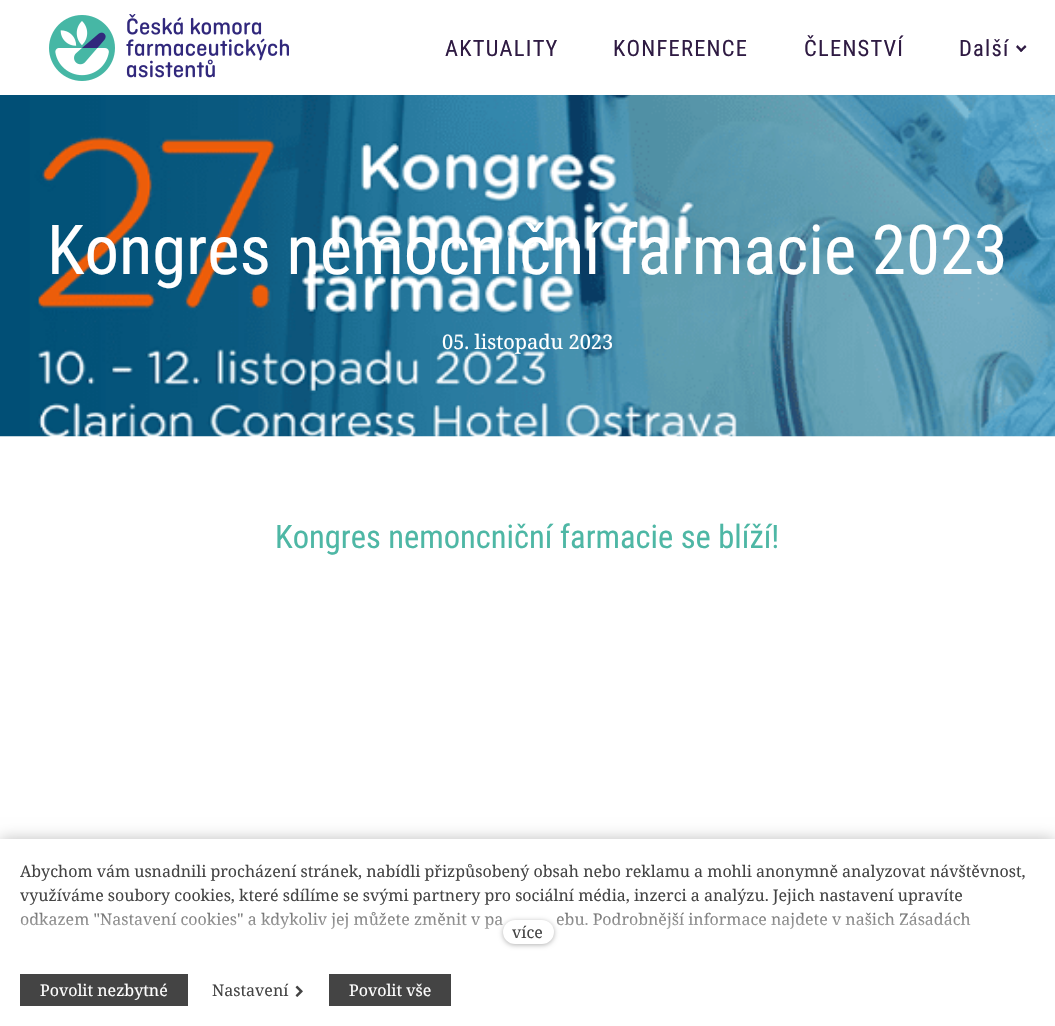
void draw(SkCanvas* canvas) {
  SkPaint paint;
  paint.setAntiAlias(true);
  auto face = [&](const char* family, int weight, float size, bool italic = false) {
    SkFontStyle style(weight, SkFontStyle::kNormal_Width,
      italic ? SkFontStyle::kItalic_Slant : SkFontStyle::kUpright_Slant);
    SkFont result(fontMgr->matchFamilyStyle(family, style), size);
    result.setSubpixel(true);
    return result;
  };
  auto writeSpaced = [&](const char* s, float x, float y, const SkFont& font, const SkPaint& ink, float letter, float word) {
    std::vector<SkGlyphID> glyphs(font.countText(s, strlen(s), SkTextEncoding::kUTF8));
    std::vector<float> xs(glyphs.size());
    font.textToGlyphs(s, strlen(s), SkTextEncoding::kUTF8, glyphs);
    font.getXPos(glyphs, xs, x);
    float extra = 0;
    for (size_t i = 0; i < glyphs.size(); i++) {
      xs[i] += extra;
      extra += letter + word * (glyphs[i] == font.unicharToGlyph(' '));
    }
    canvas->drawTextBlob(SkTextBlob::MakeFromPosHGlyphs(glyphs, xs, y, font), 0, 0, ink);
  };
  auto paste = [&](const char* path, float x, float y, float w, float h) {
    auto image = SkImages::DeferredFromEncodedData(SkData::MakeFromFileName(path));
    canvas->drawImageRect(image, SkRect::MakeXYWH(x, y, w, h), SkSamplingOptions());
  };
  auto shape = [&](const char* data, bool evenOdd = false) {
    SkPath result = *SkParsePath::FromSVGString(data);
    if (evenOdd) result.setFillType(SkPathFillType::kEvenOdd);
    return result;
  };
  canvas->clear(0xffffffff);
  paste("img/1.png", 49, 14, 240, 67);
  paint.setColor(0xff2f1b43);
  canvas->drawPath(shape("M1025 45L1026.5 47L1021 52L1019.5 50.5Z"), paint);
  canvas->drawPath(shape("M1017.5 45L1023 50.5L1021 52L1016 47Z"), paint);
  paste("img/2.png", 0, 95, 1055, 342);
  paint.setColor(0x40000000);
  paint.setMaskFilter(SkMaskFilter::MakeBlur(kNormal_SkBlurStyle, 7.5f));
  canvas->drawRect(SkRect::MakeXYWH(0, 839, 1055, 187), paint);
  paint.setMaskFilter(nullptr);
  paint.setColor(0xffffffff);
  canvas->drawRect(SkRect::MakeXYWH(0, 839, 1055, 187), paint);
  paint.setColor(0xff444444);
  canvas->drawRect(SkRect::MakeXYWH(20, 974, 168, 32), paint);
  paste("img/3.png", 295, 985, 8, 12);
  canvas->drawRect(SkRect::MakeXYWH(329, 974, 122, 32), paint);
  auto f0 = face("Roboto Condensed", 400, 22.5f);
  paint.setColor(0xff2f1b43);
  {
    const struct { const char* s; float x, y; } items[] = {
      {"AKTUALITY", 445, 56},
      {"KONFERENCE", 613, 56},
      {"ČLENSTVÍ", 804, 56},
      {"Další", 959, 56},
    };
    for (auto [s, x, y] : items) {
      writeSpaced(s, x, y, f0, paint, 1.25f, 0);
    }
  }
  auto f1 = face("Roboto Condensed", 400, 68.75f);
  paint.setColor(0xffffffff);
  canvas->drawString("Kongres nemocniční farmacie 2023", 47, 274, f1, paint);
  auto f2 = face("Noto Serif", 400, 20);
  canvas->drawString("05. listopadu 2023", 442, 349, f2, paint);
  auto f3 = face("Roboto Condensed", 400, 32.5f);
  paint.setColor(0xff4eb7a5);
  canvas->drawString("Kongres nemoncniční farmacie se blíží!", 275, 548, f3, paint);
  auto f4 = face("Noto Serif", 400, 16);
  paint.setColor(0xff444444);
  {
    const struct { const char* s; float x, y; } items[] = {
      {"Abychom vám usnadnili procházení stránek, nabídli přizpůsobený obsah nebo reklamu a mohli anonymně analyzovat návštěvnost,", 20, 877},
      {"využíváme soubory cookies, které sdílíme se svými partnery pro sociální média, inzerci a analýzu. Jejich nastavení upravíte", 20, 901},
      {"odkazem \"Nastavení cookies\" a kdykoliv jej můžete změnit v pa", 20, 925},
      {"ebu. Podrobnější informace najdete v našich Zásadách", 556, 925},
    };
    for (auto [s, x, y] : items) {
      canvas->drawString(s, x, y, f4, paint);
    }
  }
  {
    const SkColor colors[] = {0xffffffff, 0x00ffffff};
    const float stops[] = {0, 1};
    const SkPoint ends[] = {{528, 954}, {528, 900}};
    paint.setShader(SkGradientShader::MakeLinear(ends, colors, stops, 2, SkTileMode::kClamp));
    paint.setAlpha(255);
  }
  canvas->drawRect(SkRect::MakeXYWH(20, 901, 951, 28), paint);
  paint.setShader(nullptr);
  paint.setColor(0x4d000000);
  paint.setMaskFilter(SkMaskFilter::MakeBlur(kNormal_SkBlurStyle, 2.5f));
  canvas->drawRoundRect(SkRect::MakeXYWH(503, 921, 51, 24), 12, 12, paint);
  paint.setMaskFilter(nullptr);
  paint.setColor(0xffffffff);
  canvas->drawRoundRect(SkRect::MakeXYWH(503, 920, 51, 24), 12, 12, paint);
  paint.setColor(0xff444444);
  canvas->drawString("více", 512, 938, f4, paint);
  paint.setColor(0xffffffff);
  canvas->drawString("Povolit nezbytné", 40, 996, f4, paint);
  paint.setColor(0xff444444);
  canvas->drawString("Nastavení", 212, 996, f4, paint);
  paint.setColor(0xffffffff);
  canvas->drawString("Povolit vše", 349, 996, f4, paint);
}
